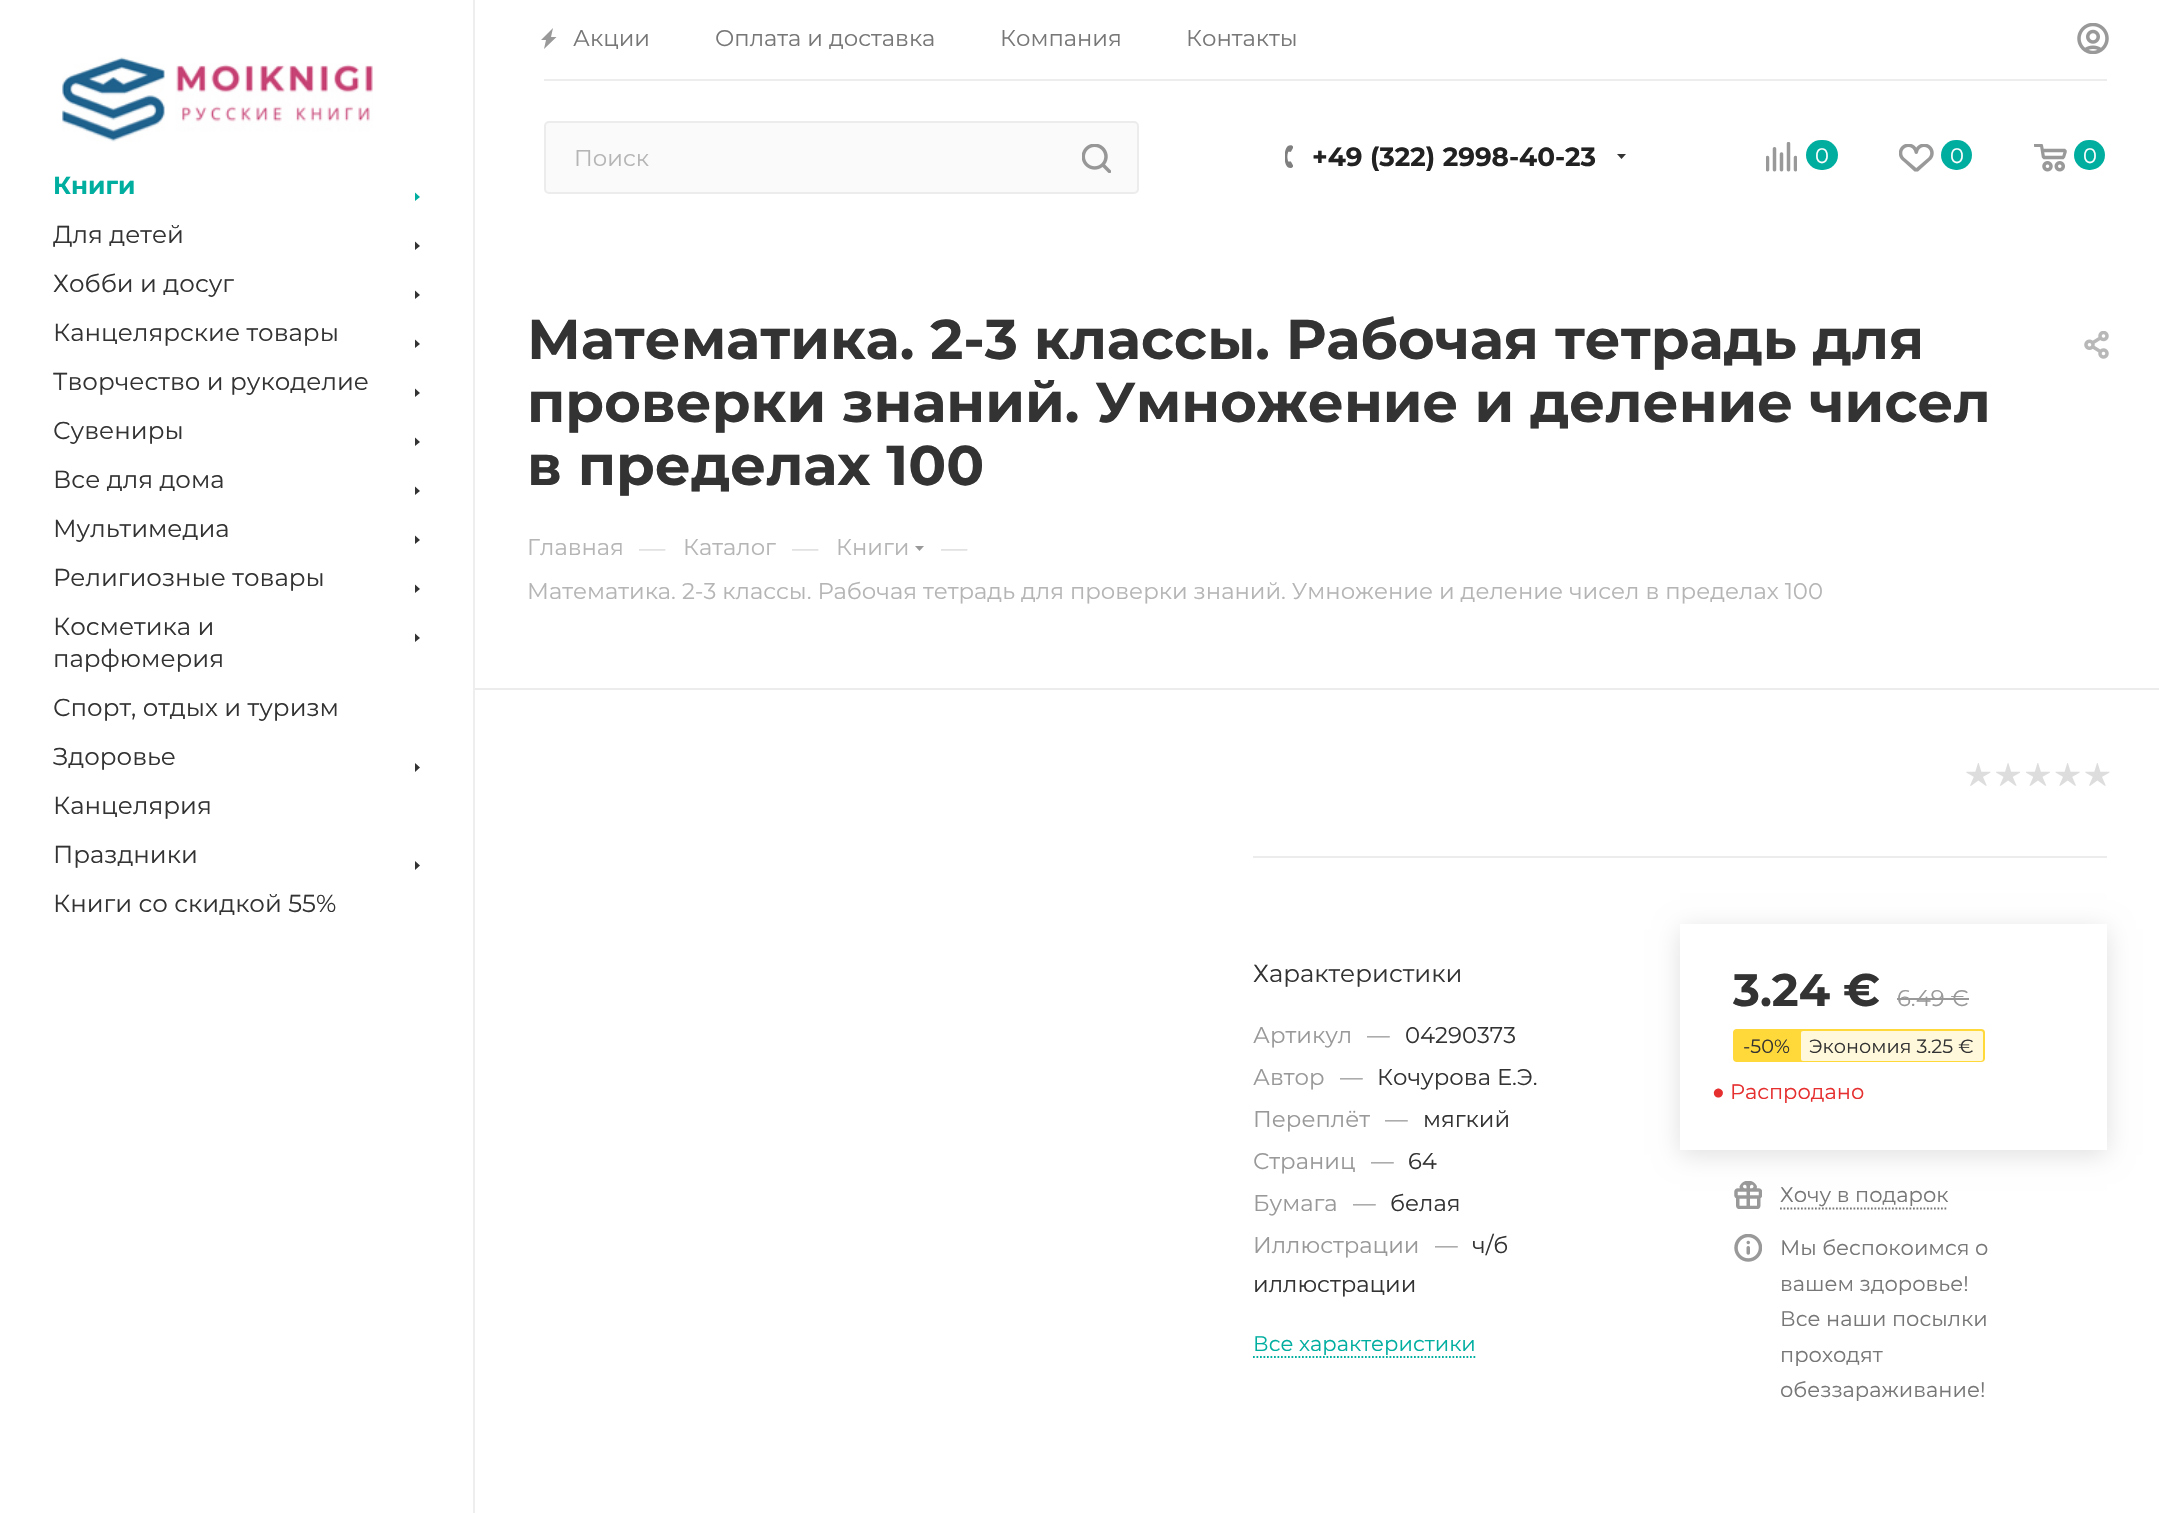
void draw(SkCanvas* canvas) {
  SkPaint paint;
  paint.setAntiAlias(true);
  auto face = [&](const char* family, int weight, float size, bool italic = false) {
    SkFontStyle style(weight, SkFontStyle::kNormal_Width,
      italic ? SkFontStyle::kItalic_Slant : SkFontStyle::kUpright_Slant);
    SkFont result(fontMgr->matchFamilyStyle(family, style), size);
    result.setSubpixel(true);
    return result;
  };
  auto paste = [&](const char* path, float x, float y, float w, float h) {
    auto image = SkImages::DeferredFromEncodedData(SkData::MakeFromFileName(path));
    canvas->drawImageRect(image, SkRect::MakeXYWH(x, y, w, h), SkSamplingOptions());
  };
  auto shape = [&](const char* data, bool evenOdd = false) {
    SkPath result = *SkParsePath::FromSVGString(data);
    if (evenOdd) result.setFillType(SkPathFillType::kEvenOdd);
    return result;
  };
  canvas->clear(0xffffffff);
  paint.setColor(0xff999999);
  canvas->drawPath(shape("M553 28L541 40H546L544 49L556.5 37H551Z", true), paint);
  paste("img/1.png", 2077, 23, 32, 31);
  paint.setColor(0xffededed);
  canvas->drawRect(SkRect::MakeXYWH(544, 79, 1563, 2), paint);
  paint.setColor(0xfffafafa);
  canvas->drawRoundRect(SkRect::MakeXYWH(545, 122, 593, 71), 4, 4, paint);
  paint.setStroke(true);
  paint.setStrokeWidth(2);
  paint.setColor(0xffececec);
  canvas->drawRoundRect(SkRect::MakeXYWH(545, 122, 593, 71), 4, 4, paint);
  paste("img/2.png", 1082, 144, 29, 29);
  paste("img/3.png", 1285, 145, 8, 23);
  paint.setStroke(false);
  paint.setColor(0xff333333);
  canvas->drawPath(shape("M1617 154H1626L1621.5 159Z", true), paint);
  paste("img/4.png", 1766, 142, 31, 30);
  paint.setColor(0xff00aea0);
  canvas->drawRoundRect(SkRect::MakeXYWH(1806, 140, 32, 30), 15, 15, paint);
  paste("img/5.png", 1899, 144, 35, 28);
  canvas->drawRoundRect(SkRect::MakeXYWH(1941, 140, 31, 30), 15, 15, paint);
  paste("img/6.png", 2034, 144, 33, 28);
  canvas->drawRoundRect(SkRect::MakeXYWH(2074, 140, 31, 30), 15, 15, paint);
  paint.setColor(0xffececec);
  canvas->drawRect(SkRect::MakeXYWH(474, 688, 1685, 2), paint);
  paint.setColor(0xffeeeeee);
  canvas->drawRect(SkRect::MakeXYWH(473, 0, 2, 1513), paint);
  paste("img/7.png", 62, 57, 311, 85);
  paint.setColor(0xff00aea0);
  canvas->drawPath(shape("M415 201V192.5L420 197Z", true), paint);
  paint.setColor(0xff333333);
  canvas->drawPath(shape("M415 250V241.5L420 246Z", true), paint);
  canvas->drawPath(shape("M415 299V290.5L420 295Z", true), paint);
  canvas->drawPath(shape("M415 348V339.5L420 344Z", true), paint);
  canvas->drawPath(shape("M415 397V388.5L420 393Z", true), paint);
  canvas->drawPath(shape("M415 446V437.5L420 442Z", true), paint);
  canvas->drawPath(shape("M415 495V486.5L420 491Z", true), paint);
  canvas->drawPath(shape("M415 544V535.5L420 540Z", true), paint);
  canvas->drawPath(shape("M415 593V584.5L420 589Z", true), paint);
  canvas->drawPath(shape("M415 642V633.5L420 638Z", true), paint);
  canvas->drawPath(shape("M415 772V763L420 767.5Z", true), paint);
  canvas->drawPath(shape("M415 870V861L420 865.5Z", true), paint);
  paste("img/8.png", 2084, 331, 25, 28);
  paint.setColor(0xff999999);
  canvas->drawPath(shape("M915 546H924L919.5 551Z", true), paint);
  paint.setColor(0xffececec);
  canvas->drawRect(SkRect::MakeXYWH(1253, 856, 854, 2), paint);
  paste("img/9.png", 1966, 763, 25, 23);
  paste("img/10.png", 1996, 763, 24, 23);
  paste("img/11.png", 2026, 763, 24, 23);
  paste("img/12.png", 2055, 763, 25, 23);
  paste("img/9.png", 2085, 763, 25, 23);
  paint.setStroke(true);
  paint.setStrokeWidth(1.8f);
  paint.setColor(0xff00aea0);
  paint.setPathEffect(SkDashPathEffect::Make({{1.75f, 1.75f}}, 0));
  canvas->drawPath(shape("M1253 1357H1477"), paint);
  paint.setPathEffect(nullptr);
  canvas->save();
  canvas->clipPath(shape("M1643 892H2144V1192H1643ZM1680 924H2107V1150H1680Z", true), true);
  paint.setStroke(false);
  paint.setColor(0x1f000000);
  paint.setMaskFilter(SkMaskFilter::MakeBlur(kNormal_SkBlurStyle, 12));
  canvas->drawRect(SkRect::MakeXYWH(1680, 929, 427, 226), paint);
  paint.setMaskFilter(nullptr);
  canvas->restore();
  paint.setColor(0xff999999);
  canvas->drawRect(SkRect::MakeXYWH(1897, 998, 72, 2), paint);
  paint.setColor(0xffffd83a);
  canvas->drawRoundRect(SkRect::MakeXYWH(1733, 1029, 252, 33), 4, 4, paint);
  paint.setColor(0xfffff8db);
  canvas->drawRoundRect(SkRect::MakeXYWH(1801, 1031, 182, 30), 2, 2, paint);
  paste("img/13.png", 1734, 1181, 28, 28);
  paint.setStroke(true);
  paint.setColor(0xff777777);
  paint.setPathEffect(SkDashPathEffect::Make({{1.75f, 1.75f}}, 0));
  canvas->drawPath(shape("M1780 1208.5H1948"), paint);
  paint.setPathEffect(nullptr);
  paste("img/14.png", 1734, 1234, 28, 28);
  auto f0 = face("Montserrat", 400, 22.75f);
  paint.setStroke(false);
  {
    const struct { const char* s; float x, y; } items[] = {
      {"Акции", 573, 46},
      {"Оплата и доставка", 715, 46},
      {"Компания", 1000, 46},
      {"Контакты", 1186, 46},
    };
    for (auto [s, x, y] : items) {
      canvas->drawString(s, x, y, f0, paint);
    }
  }
  paint.setColor(0xffb6b5b5);
  canvas->drawString("Поиск", 574, 166, f0, paint);
  auto f1 = face("Montserrat", 700, 26.25f);
  paint.setColor(0xff222222);
  canvas->drawString("+49 (322) 2998-40-23", 1312, 166, f1, paint);
  auto f2 = face("Montserrat", 400, 21);
  paint.setColor(0xffffffff);
  {
    const struct { const char* s; float x, y; } items[] = {
      {"0", 1815, 163},
      {"0", 1950, 163},
      {"0", 2083, 163},
    };
    for (auto [s, x, y] : items) {
      canvas->drawString(s, x, y, f2, paint);
    }
  }
  auto f3 = face("Montserrat", 700, 24.5f);
  paint.setColor(0xff00aea0);
  canvas->drawString("Книги", 53, 194, f3, paint);
  auto f4 = face("Montserrat", 400, 24.5f);
  paint.setColor(0xff333333);
  {
    const struct { const char* s; float x, y; } items[] = {
      {"Для детей", 53, 243},
      {"Хобби и досуг", 53, 292},
      {"Канцелярские товары", 53, 341},
      {"Творчество и рукоделие", 53, 390},
      {"Сувениры", 53, 439},
      {"Все для дома", 53, 488},
      {"Мультимедиа", 53, 537},
      {"Религиозные товары", 53, 586},
      {"Косметика и", 53, 635},
      {"парфюмерия", 53, 667},
      {"Спорт, отдых и туризм", 53, 716},
      {"Здоровье", 53, 765},
      {"Канцелярия", 53, 814},
      {"Праздники", 53, 863},
      {"Книги со скидкой 55%", 53, 912},
    };
    for (auto [s, x, y] : items) {
      canvas->drawString(s, x, y, f4, paint);
    }
  }
  auto f5 = face("Montserrat", 700, 56);
  {
    const struct { const char* s; float x, y; } items[] = {
      {"Математика. 2-3 классы. Рабочая тетрадь для", 527, 359},
      {"проверки знаний. Умножение и деление чисел", 527, 422},
      {"в пределах 100", 527, 485},
    };
    for (auto [s, x, y] : items) {
      canvas->drawString(s, x, y, f5, paint);
    }
  }
  paint.setColor(0xffb6b5b5);
  canvas->drawString("Главная", 527, 555, f0, paint);
  auto f6 = face("Montserrat", 400, 26.25f);
  paint.setColor(0xffdddddd);
  canvas->drawString("—", 639, 557, f6, paint);
  paint.setColor(0xffb6b5b5);
  canvas->drawString("Каталог", 683, 555, f0, paint);
  paint.setColor(0xffdddddd);
  canvas->drawString("—", 792, 557, f6, paint);
  paint.setColor(0xffb6b5b5);
  canvas->drawString("Книги", 836, 555, f0, paint);
  paint.setColor(0xffdddddd);
  canvas->drawString("—", 941, 557, f6, paint);
  paint.setColor(0xffb6b5b5);
  canvas->drawString("Математика. 2-3 классы. Рабочая тетрадь для проверки знаний. Умножение и деление чисел в пределах 100", 527, 599, f0, paint);
  paint.setColor(0xff333333);
  canvas->drawString("Характеристики", 1253, 982, f4, paint);
  paint.setColor(0xff999999);
  canvas->drawString("Артикул", 1253, 1043, f0, paint);
  canvas->drawString("—", 1367, 1043, f0, paint);
  paint.setColor(0xff333333);
  canvas->drawString("04290373", 1405, 1043, f0, paint);
  paint.setColor(0xff999999);
  canvas->drawString("Автор", 1253, 1085, f0, paint);
  canvas->drawString("—", 1340, 1085, f0, paint);
  paint.setColor(0xff333333);
  canvas->drawString("Кочурова Е.Э.", 1377, 1085, f0, paint);
  paint.setColor(0xff999999);
  canvas->drawString("Переплёт", 1253, 1127, f0, paint);
  canvas->drawString("—", 1385, 1127, f0, paint);
  paint.setColor(0xff333333);
  canvas->drawString("мягкий", 1423, 1127, f0, paint);
  paint.setColor(0xff999999);
  canvas->drawString("Страниц", 1253, 1169, f0, paint);
  canvas->drawString("—", 1371, 1169, f0, paint);
  paint.setColor(0xff333333);
  canvas->drawString("64", 1408, 1169, f0, paint);
  paint.setColor(0xff999999);
  canvas->drawString("Бумага", 1253, 1211, f0, paint);
  canvas->drawString("—", 1353, 1211, f0, paint);
  paint.setColor(0xff333333);
  canvas->drawString("белая", 1390, 1211, f0, paint);
  paint.setColor(0xff999999);
  canvas->drawString("Иллюстрации", 1253, 1253, f0, paint);
  canvas->drawString("—", 1435, 1253, f0, paint);
  paint.setColor(0xff333333);
  canvas->drawString("ч/б", 1472, 1253, f0, paint);
  canvas->drawString("иллюстрации", 1253, 1292, f0, paint);
  paint.setColor(0xff00aea0);
  canvas->drawString("Все характеристики", 1253, 1351, f2, paint);
  auto f7 = face("Montserrat", 700, 45.5f);
  paint.setColor(0xff333333);
  canvas->drawString("3.24 €", 1733, 1006, f7, paint);
  paint.setColor(0xff999999);
  canvas->drawString("6.49 €", 1897, 1006, f0, paint);
  auto f8 = face("Montserrat", 400, 19.25f);
  paint.setColor(0xff333333);
  canvas->drawString("-50%", 1743, 1053, f8, paint);
  canvas->drawString("Экономия 3.25 €", 1809, 1053, f8, paint);
  auto f9 = face("Liberation Sans", 400, 21);
  paint.setColor(0xffe62f2f);
  canvas->drawString("●", 1712, 1099, f9, paint);
  canvas->drawString("Распродано", 1730, 1099, f2, paint);
  paint.setColor(0xff777777);
  {
    const struct { const char* s; float x, y; } items[] = {
      {"Хочу в подарок", 1780, 1202},
      {"Мы беспокоимся о", 1780, 1255},
      {"вашем здоровье!", 1780, 1291},
      {"Все наши посылки", 1780, 1326},
      {"проходят", 1780, 1362},
      {"обеззараживание!", 1780, 1397},
    };
    for (auto [s, x, y] : items) {
      canvas->drawString(s, x, y, f2, paint);
    }
  }
}
